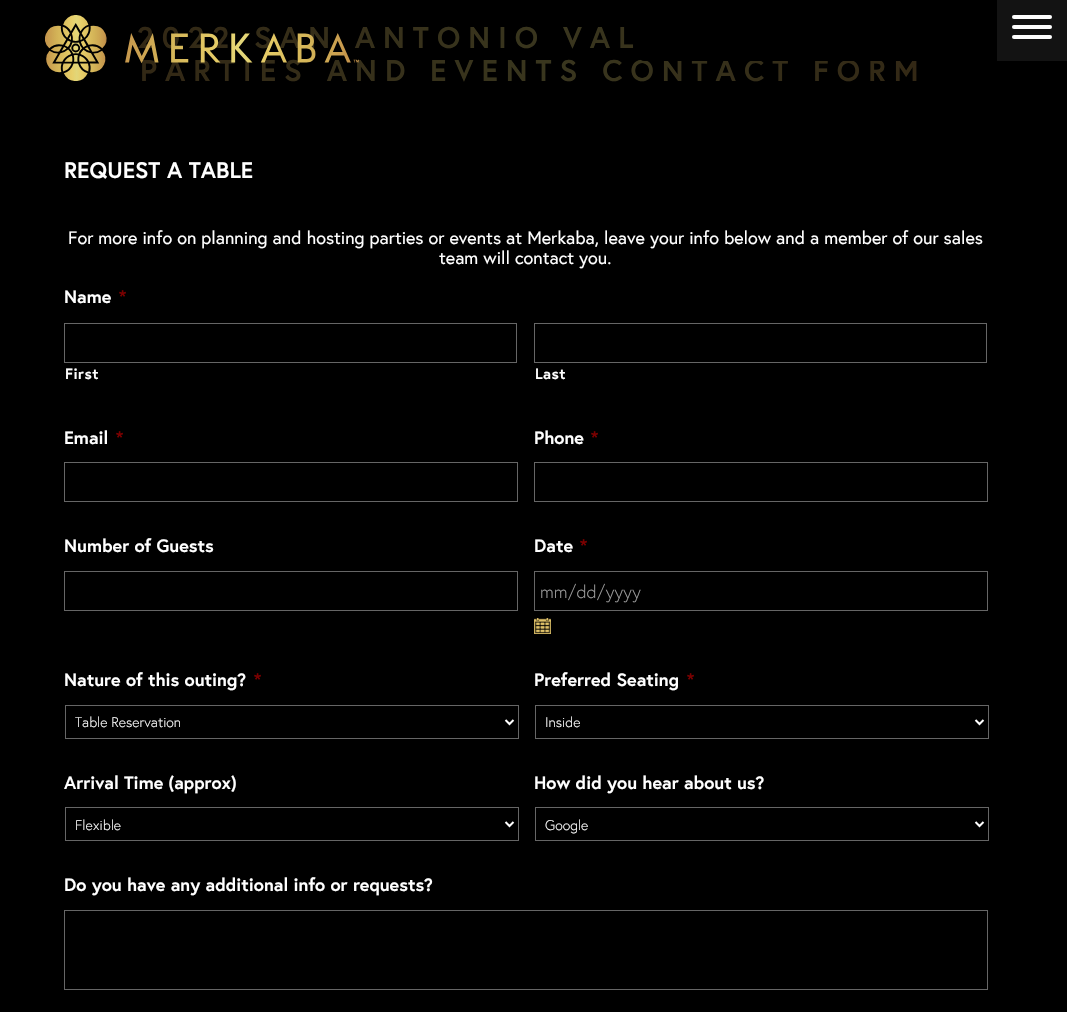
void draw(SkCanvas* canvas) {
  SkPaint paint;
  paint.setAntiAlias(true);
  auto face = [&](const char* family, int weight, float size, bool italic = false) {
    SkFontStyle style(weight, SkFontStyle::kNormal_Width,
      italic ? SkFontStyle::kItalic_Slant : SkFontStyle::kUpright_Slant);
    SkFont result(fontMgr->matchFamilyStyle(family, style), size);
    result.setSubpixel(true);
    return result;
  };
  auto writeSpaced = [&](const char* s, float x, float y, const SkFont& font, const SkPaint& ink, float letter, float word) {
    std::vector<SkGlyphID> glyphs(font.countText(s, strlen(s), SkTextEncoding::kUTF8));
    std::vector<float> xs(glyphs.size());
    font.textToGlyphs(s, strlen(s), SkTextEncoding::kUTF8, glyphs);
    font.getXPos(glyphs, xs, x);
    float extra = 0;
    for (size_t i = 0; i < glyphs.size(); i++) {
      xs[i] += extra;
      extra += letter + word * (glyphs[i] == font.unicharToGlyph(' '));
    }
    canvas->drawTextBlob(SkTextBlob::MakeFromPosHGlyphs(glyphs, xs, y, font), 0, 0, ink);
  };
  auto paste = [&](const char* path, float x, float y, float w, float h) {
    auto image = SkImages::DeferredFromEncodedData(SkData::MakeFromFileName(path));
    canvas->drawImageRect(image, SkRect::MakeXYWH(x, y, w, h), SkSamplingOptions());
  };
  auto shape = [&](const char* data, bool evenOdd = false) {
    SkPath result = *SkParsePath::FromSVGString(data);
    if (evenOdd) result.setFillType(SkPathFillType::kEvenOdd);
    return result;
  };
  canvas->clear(0xff000000);
  paint.setStroke(true);
  paint.setStrokeWidth(1);
  paint.setColor(0xff666666);
  canvas->drawRect(SkRect::MakeXYWH(64.5f, 323.5f, 452, 39), paint);
  canvas->drawRect(SkRect::MakeXYWH(534.5f, 323.5f, 452, 39), paint);
  canvas->drawRect(SkRect::MakeXYWH(64.5f, 462.5f, 453, 39), paint);
  canvas->drawRect(SkRect::MakeXYWH(534.5f, 462.5f, 453, 39), paint);
  canvas->drawRect(SkRect::MakeXYWH(64.5f, 571.5f, 453, 39), paint);
  canvas->drawRect(SkRect::MakeXYWH(534.5f, 571.5f, 453, 39), paint);
  paste("img/2.png", 534, 618, 17, 16);
  canvas->drawRect(SkRect::MakeXYWH(65.5f, 705.5f, 453, 33), paint);
  paint.setStrokeWidth(2);
  paint.setColor(0xffffffff);
  canvas->drawPath(shape("M505.5 720L509.5 724L513.5 720"), paint);
  paint.setStrokeWidth(1);
  paint.setColor(0xff666666);
  canvas->drawRect(SkRect::MakeXYWH(535.5f, 705.5f, 453, 33), paint);
  paint.setStrokeWidth(2);
  paint.setColor(0xffffffff);
  canvas->drawPath(shape("M975.5 720L979.5 724L983.5 720"), paint);
  paint.setStrokeWidth(1);
  paint.setColor(0xff666666);
  canvas->drawRect(SkRect::MakeXYWH(65.5f, 807.5f, 453, 33), paint);
  paint.setStrokeWidth(2);
  paint.setColor(0xffffffff);
  canvas->drawPath(shape("M505.5 822L509.5 826L513.5 822"), paint);
  paint.setStrokeWidth(1);
  paint.setColor(0xff666666);
  canvas->drawRect(SkRect::MakeXYWH(535.5f, 807.5f, 453, 33), paint);
  paint.setStrokeWidth(2);
  paint.setColor(0xffffffff);
  canvas->drawPath(shape("M975.5 822L979.5 826L983.5 822"), paint);
  paint.setStrokeWidth(1);
  paint.setColor(0xff666666);
  canvas->drawRect(SkRect::MakeXYWH(64.5f, 910.5f, 923, 79), paint);
  auto f0 = face("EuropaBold", 700, 30);
  paint.setStroke(false);
  {
    const SkColor colors[] = {0xff312513, 0xff39361e, 0xff312513};
    const float stops[] = {0, 0.48f, 1};
    const SkPoint ends[] = {{1004, 53}, {64, 53}};
    paint.setShader(SkGradientShader::MakeLinear(ends, colors, stops, 3, SkTileMode::kClamp));
    paint.setAlpha(255);
  }
  writeSpaced("2022 SAN ANTONIO VAL", 137, 48, f0, paint, 8, 0);
  writeSpaced("PARTIES AND EVENTS CONTACT FORM", 140, 81, f0, paint, 8, 0);
  paint.setShader(nullptr);
  paint.setColor(0xff000000);
  canvas->drawRoundRect(SkRect::MakeXYWH(640, 0, 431, 61), 4, 4, paint);
  paint.setColor(0xff131313);
  canvas->drawRect(SkRect::MakeXYWH(997, 0, 70, 61), paint);
  paint.setColor(0xffffffff);
  canvas->drawRoundRect(SkRect::MakeXYWH(1012, 35, 40, 4), 2, 2, paint);
  canvas->drawRoundRect(SkRect::MakeXYWH(1012, 15, 40, 4), 2, 2, paint);
  canvas->drawRoundRect(SkRect::MakeXYWH(1012, 25, 40, 4), 2, 2, paint);
  paste("img/1.png", 45, 15, 314, 66);
  auto f1 = face("EuropaBold", 700, 22.5f);
  canvas->drawString("REQUEST A TABLE", 64, 178, f1, paint);
  auto f2 = face("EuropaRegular", 400, 18);
  canvas->drawString("For more info on planning and hosting parties or events at Merkaba, leave your info below and a member of our sales", 68, 244, f2, paint);
  canvas->drawString("team will contact you.", 439, 264, f2, paint);
  auto f3 = face("EuropaBold", 700, 18);
  canvas->drawString("Name", 64, 303, f3, paint);
  paint.setColor(0xff790000);
  canvas->drawString("*", 119, 303, f3, paint);
  auto f4 = face("EuropaBold", 700, 15);
  paint.setColor(0xffffffff);
  writeSpaced("First", 65, 379, f4, paint, 0.5f, 0);
  writeSpaced("Last", 535, 379, f4, paint, 0.5f, 0);
  canvas->drawString("Email", 64, 444, f3, paint);
  paint.setColor(0xff790000);
  canvas->drawString("*", 116, 444, f3, paint);
  paint.setColor(0xffffffff);
  canvas->drawString("Phone", 534, 444, f3, paint);
  paint.setColor(0xff790000);
  canvas->drawString("*", 591, 444, f3, paint);
  paint.setColor(0xffffffff);
  canvas->drawString("Number of Guests", 64, 552, f3, paint);
  canvas->drawString("Date", 534, 552, f3, paint);
  paint.setColor(0xff790000);
  canvas->drawString("*", 580, 552, f3, paint);
  auto f5 = face("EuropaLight", 300, 18);
  paint.setColor(0xff999999);
  canvas->drawString("mm/dd/yyyy", 540, 598, f5, paint);
  paint.setColor(0xffffffff);
  canvas->drawString("Nature of this outing?", 64, 686, f3, paint);
  paint.setColor(0xff790000);
  canvas->drawString("*", 254, 686, f3, paint);
  auto f6 = face("EuropaLight", 300, 14);
  paint.setColor(0xffffffff);
  canvas->drawString("Table Reservation", 75, 727, f6, paint);
  canvas->drawString("Preferred Seating", 534, 686, f3, paint);
  paint.setColor(0xff790000);
  canvas->drawString("*", 687, 686, f3, paint);
  paint.setColor(0xffffffff);
  canvas->drawString("Inside", 545, 727, f6, paint);
  canvas->drawString("Arrival Time (approx)", 64, 789, f3, paint);
  canvas->drawString("Flexible", 75, 830, f6, paint);
  canvas->drawString("How did you hear about us?", 534, 789, f3, paint);
  canvas->drawString("Google", 545, 830, f6, paint);
  canvas->drawString("Do you have any additional info or requests?", 64, 891, f3, paint);
}
